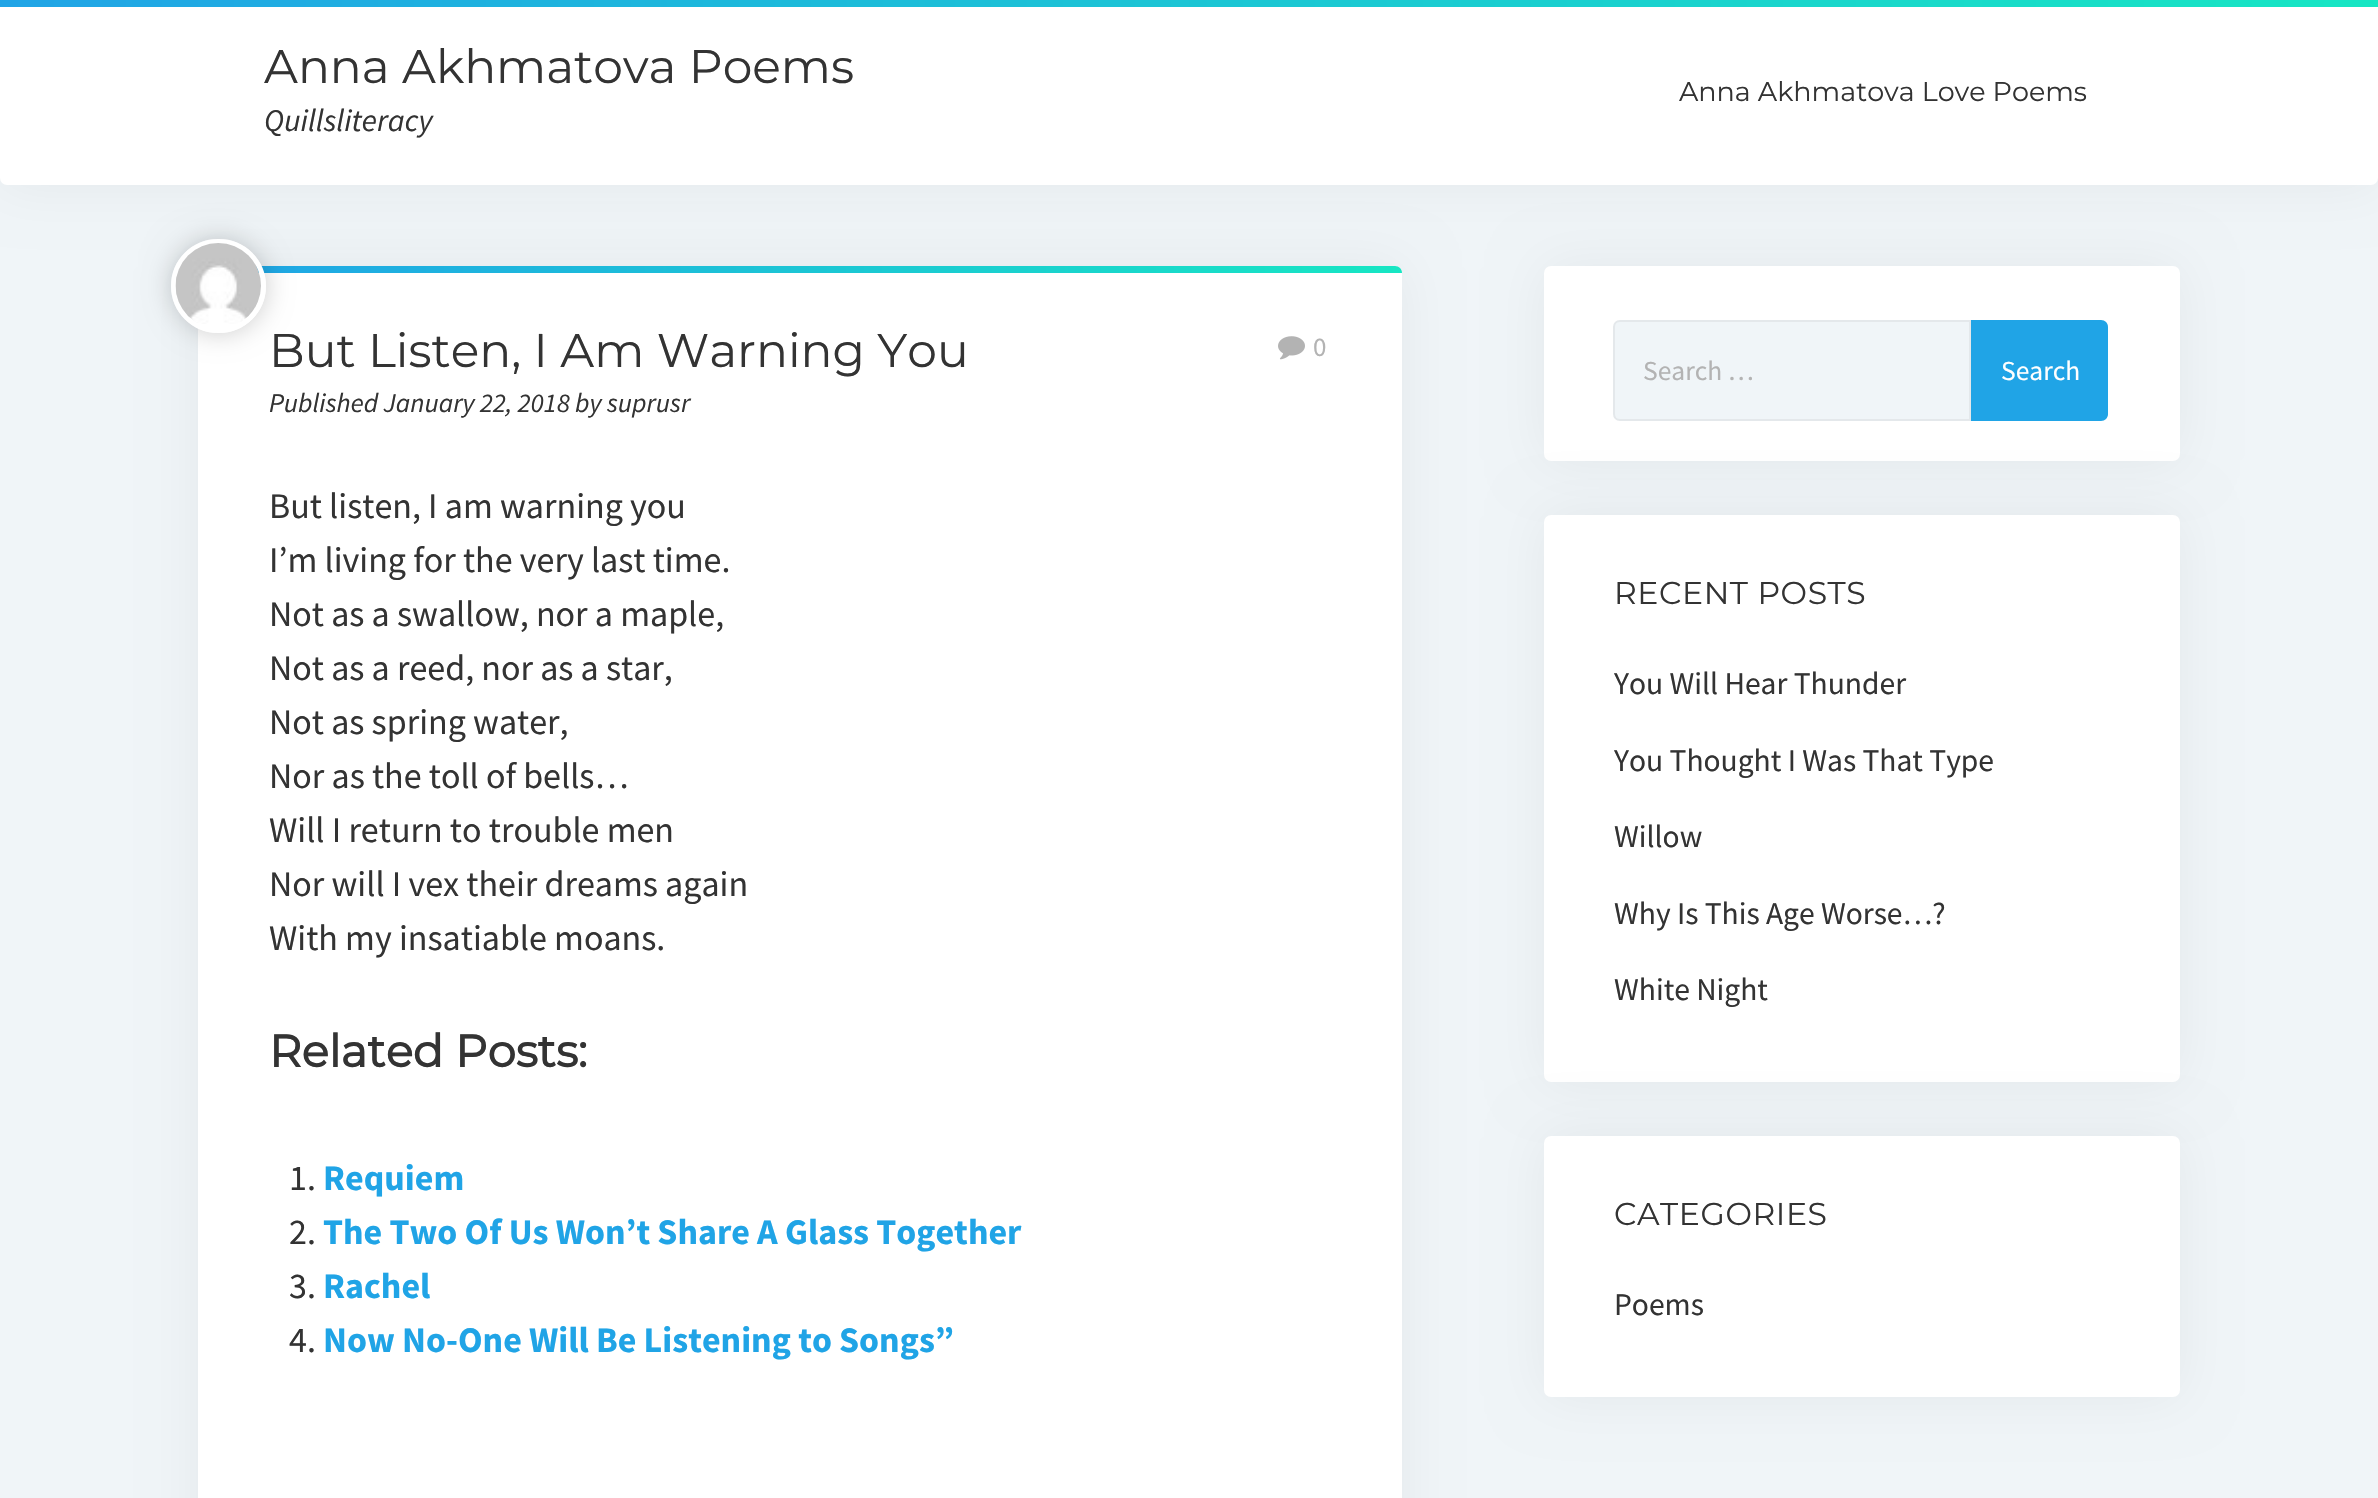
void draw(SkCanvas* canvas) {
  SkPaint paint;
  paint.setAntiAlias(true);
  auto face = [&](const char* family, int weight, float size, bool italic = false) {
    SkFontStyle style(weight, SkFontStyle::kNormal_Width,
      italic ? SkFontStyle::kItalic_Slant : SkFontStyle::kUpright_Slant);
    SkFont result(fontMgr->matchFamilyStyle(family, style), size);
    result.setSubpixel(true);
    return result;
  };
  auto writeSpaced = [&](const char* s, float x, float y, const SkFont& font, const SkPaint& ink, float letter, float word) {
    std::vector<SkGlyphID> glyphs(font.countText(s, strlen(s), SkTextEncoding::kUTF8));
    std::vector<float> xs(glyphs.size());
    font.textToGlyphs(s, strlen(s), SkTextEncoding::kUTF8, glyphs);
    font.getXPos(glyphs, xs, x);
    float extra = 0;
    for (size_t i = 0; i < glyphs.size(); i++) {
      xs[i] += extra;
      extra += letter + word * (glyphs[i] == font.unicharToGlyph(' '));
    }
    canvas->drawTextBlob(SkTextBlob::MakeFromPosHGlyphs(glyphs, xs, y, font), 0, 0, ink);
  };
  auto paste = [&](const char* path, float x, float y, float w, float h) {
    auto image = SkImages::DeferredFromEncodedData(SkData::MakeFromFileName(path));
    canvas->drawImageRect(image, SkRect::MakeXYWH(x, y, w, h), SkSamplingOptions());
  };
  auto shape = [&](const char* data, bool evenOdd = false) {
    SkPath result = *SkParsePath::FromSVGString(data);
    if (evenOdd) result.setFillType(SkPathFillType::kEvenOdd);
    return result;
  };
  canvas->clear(0xfff0f5f8);
  paint.setColor(0x0d000000);
  paint.setMaskFilter(SkMaskFilter::MakeBlur(kNormal_SkBlurStyle, 27));
  canvas->drawRoundRect(SkRect::MakeXYWH(1544, 266, 636, 195), 7, 7, paint);
  paint.setMaskFilter(nullptr);
  paint.setColor(0xffffffff);
  canvas->drawRoundRect(SkRect::MakeXYWH(1544, 266, 636, 195), 7, 7, paint);
  paint.setColor(0x0d000000);
  paint.setMaskFilter(SkMaskFilter::MakeBlur(kNormal_SkBlurStyle, 27));
  canvas->drawRoundRect(SkRect::MakeXYWH(0, 0, 2378, 185), 7, 7, paint);
  paint.setMaskFilter(nullptr);
  paint.setColor(0xffffffff);
  canvas->drawRoundRect(SkRect::MakeXYWH(0, 0, 2378, 185), 7, 7, paint);
  {
    const SkColor colors[] = {0xff20a4e6, 0xff17e6c3};
    const float stops[] = {0, 1};
    const SkPoint ends[] = {{0, 3.4f}, {2378, 3.4f}};
    paint.setShader(SkGradientShader::MakeLinear(ends, colors, stops, 2, SkTileMode::kClamp));
    paint.setAlpha(255);
  }
  canvas->drawRect(SkRect::MakeXYWH(0, 0, 2378, 7), paint);
  paint.setShader(nullptr);
  paint.setColor(0x0d000000);
  paint.setMaskFilter(SkMaskFilter::MakeBlur(kNormal_SkBlurStyle, 27));
  canvas->drawRoundRect(SkRect::MakeXYWH(198, 266, 1204, 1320), 7, 7, paint);
  paint.setMaskFilter(nullptr);
  paint.setColor(0xffffffff);
  canvas->drawRoundRect(SkRect::MakeXYWH(198, 266, 1204, 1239), 7, 7, paint);
  {
    const SkColor colors[] = {0xff20a4e6, 0xff17e6c3};
    const float stops[] = {0, 1};
    const SkPoint ends[] = {{198, 269}, {1402, 269}};
    paint.setShader(SkGradientShader::MakeLinear(ends, colors, stops, 2, SkTileMode::kClamp));
    paint.setAlpha(255);
  }
  canvas->drawPath(shape("M205 266H1395C1399 266 1402 269 1402 273H198C198 269 201 266 205 266Z"), paint);
  canvas->save();
  canvas->clipPath(shape("M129 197H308V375H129ZM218 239H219C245 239 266 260 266 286C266 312 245 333 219 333H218C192 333 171 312 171 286C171 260 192 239 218 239Z", true), true);
  paint.setShader(nullptr);
  paint.setColor(0x33000000);
  paint.setMaskFilter(SkMaskFilter::MakeBlur(kNormal_SkBlurStyle, 13.5f));
  canvas->drawRoundRect(SkRect::MakeXYWH(171, 239, 95, 94), 47, 47, paint);
  paint.setMaskFilter(nullptr);
  canvas->restore();
  paint.setStroke(true);
  paint.setStrokeWidth(5);
  paint.setColor(0xffffffff);
  canvas->drawRoundRect(SkRect::MakeXYWH(173.5f, 241.5f, 90, 89), 44.5f, 44.5f, paint);
  paste("img/1.png", 175, 243, 86, 81);
  paste("img/2.png", 1278, 336, 27, 24);
  paint.setStroke(false);
  paint.setColor(0xfff0f5f8);
  canvas->drawPath(shape("M1620 321H1970V420H1620C1616.5 420 1614 417.5 1614 414V327C1614 323.5 1616.5 321 1620 321Z"), paint);
  paint.setStroke(true);
  paint.setStrokeWidth(2);
  paint.setColor(0xffe4e8eb);
  canvas->drawPath(shape("M1620 321H1970V420H1620C1616.5 420 1614 417.5 1614 414V327C1614 323.5 1616.5 321 1620 321Z"), paint);
  paint.setStroke(false);
  paint.setColor(0xff20a4e6);
  canvas->drawPath(shape("M1971 320H2101C2105 320 2108 323 2108 327V414C2108 418 2105 421 2101 421H1971Z"), paint);
  paint.setColor(0x0d000000);
  paint.setMaskFilter(SkMaskFilter::MakeBlur(kNormal_SkBlurStyle, 27));
  canvas->drawRoundRect(SkRect::MakeXYWH(1544, 515, 636, 567), 7, 7, paint);
  paint.setMaskFilter(nullptr);
  paint.setColor(0xffffffff);
  canvas->drawRoundRect(SkRect::MakeXYWH(1544, 515, 636, 567), 7, 7, paint);
  paint.setColor(0x0d000000);
  paint.setMaskFilter(SkMaskFilter::MakeBlur(kNormal_SkBlurStyle, 27));
  canvas->drawRoundRect(SkRect::MakeXYWH(1544, 1136, 636, 261), 7, 7, paint);
  paint.setMaskFilter(nullptr);
  paint.setColor(0xffffffff);
  canvas->drawRoundRect(SkRect::MakeXYWH(1544, 1136, 636, 261), 7, 7, paint);
  auto f0 = face("Montserrat", 100, 47.25f);
  paint.setColor(0xff333333);
  canvas->drawString("Anna Akhmatova Poems", 264, 83, f0, paint);
  auto f1 = face("Source Sans Pro", 400, 31.5f, true);
  canvas->drawString("Quillsliteracy", 264, 131, f1, paint);
  auto f2 = face("Montserrat", 100, 27);
  canvas->drawString("Anna Akhmatova Love Poems", 1679, 101, f2, paint);
  canvas->drawString("But Listen, I Am Warning You", 269, 367, f0, paint);
  auto f3 = face("Source Sans Pro", 400, 27);
  paint.setColor(0xffb3b3b3);
  canvas->drawString("0", 1313, 356, f3, paint);
  auto f4 = face("Source Sans Pro", 400, 27, true);
  paint.setColor(0xff333333);
  canvas->drawString("Published January 22, 2018 by suprusr", 269, 412, f4, paint);
  auto f5 = face("Source Sans Pro", 400, 36);
  {
    const struct { const char* s; float x, y; } items[] = {
      {"But listen, I am warning you", 269, 518},
      {"I’m living for the very last time.", 269, 572},
      {"Not as a swallow, nor a maple,", 269, 626},
      {"Not as a reed, nor as a star,", 269, 680},
      {"Not as spring water,", 269, 734},
      {"Nor as the toll of bells…", 269, 788},
      {"Will I return to trouble men", 269, 842},
      {"Nor will I vex their dreams again", 269, 896},
      {"With my insatiable moans.", 269, 950},
    };
    for (auto [s, x, y] : items) {
      canvas->drawString(s, x, y, f5, paint);
    }
  }
  auto f6 = face("Montserrat", 700, 45);
  canvas->drawString("Related Posts:", 269, 1067, f6, paint);
  canvas->drawString("1.", 289, 1190, f5, paint);
  auto f7 = face("Source Sans Pro", 700, 36);
  paint.setColor(0xff20a4e6);
  canvas->drawString("Requiem", 323, 1190, f7, paint);
  paint.setColor(0xff333333);
  canvas->drawString("2.", 289, 1244, f5, paint);
  paint.setColor(0xff20a4e6);
  canvas->drawString("The Two Of Us Won’t Share A Glass Together", 323, 1244, f7, paint);
  paint.setColor(0xff333333);
  canvas->drawString("3.", 289, 1298, f5, paint);
  paint.setColor(0xff20a4e6);
  canvas->drawString("Rachel", 323, 1298, f7, paint);
  paint.setColor(0xff333333);
  canvas->drawString("4.", 289, 1352, f5, paint);
  paint.setColor(0xff20a4e6);
  canvas->drawString("Now No-One Will Be Listening to Songs”", 323, 1352, f7, paint);
  auto f8 = face("Source Sans Pro", 400, 27.5f);
  paint.setColor(0xffb3b3b3);
  canvas->drawString("Search …", 1643, 380, f8, paint);
  paint.setColor(0xffffffff);
  canvas->drawString("Search", 2001, 380, f8, paint);
  auto f9 = face("Montserrat", 100, 31.5f);
  paint.setColor(0xff333333);
  writeSpaced("RECENT POSTS", 1614, 604, f9, paint, 0.6f, 0);
  auto f10 = face("Source Sans Pro", 400, 31.5f);
  {
    const struct { const char* s; float x, y; } items[] = {
      {"You Will Hear Thunder", 1614, 694},
      {"You Thought I Was That Type", 1614, 771},
      {"Willow", 1614, 847},
      {"Why Is This Age Worse…?", 1614, 924},
      {"White Night", 1614, 1000},
    };
    for (auto [s, x, y] : items) {
      canvas->drawString(s, x, y, f10, paint);
    }
  }
  writeSpaced("CATEGORIES", 1614, 1225, f9, paint, 0.6f, 0);
  canvas->drawString("Poems", 1614, 1315, f10, paint);
}
